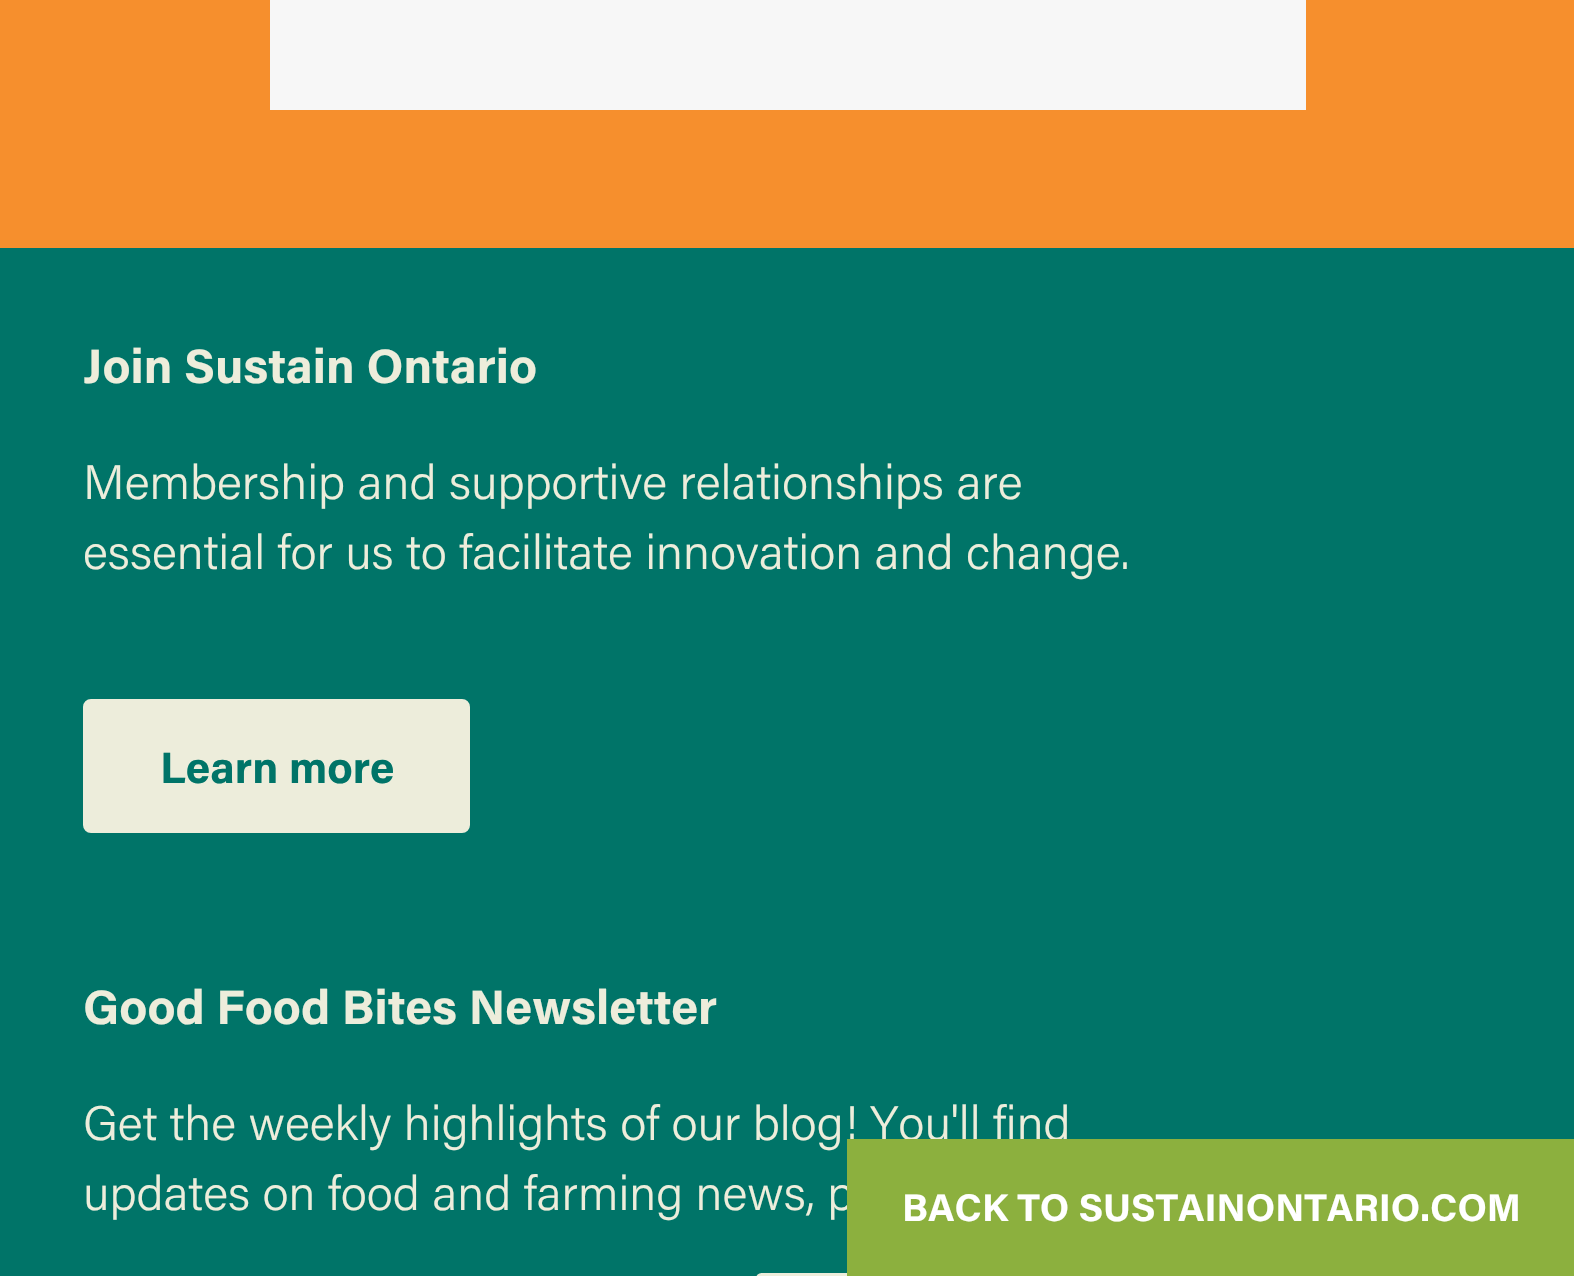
void draw(SkCanvas* canvas) {
  SkPaint paint;
  paint.setAntiAlias(true);
  auto face = [&](const char* family, int weight, float size, bool italic = false) {
    SkFontStyle style(weight, SkFontStyle::kNormal_Width,
      italic ? SkFontStyle::kItalic_Slant : SkFontStyle::kUpright_Slant);
    SkFont result(fontMgr->matchFamilyStyle(family, style), size);
    result.setSubpixel(true);
    return result;
  };
  canvas->clear(0xfff68f2d);
  paint.setColor(0xfff7f7f7);
  canvas->drawRect(SkRect::MakeXYWH(270, 0, 1036, 110), paint);
  paint.setColor(0xff007468);
  canvas->drawRect(SkRect::MakeXYWH(0, 248, 1574, 1028), paint);
  paint.setColor(0xffededdb);
  canvas->drawRoundRect(SkRect::MakeXYWH(87, 703, 379, 126), 4, 4, paint);
  paint.setStroke(true);
  paint.setStrokeWidth(8);
  canvas->drawRoundRect(SkRect::MakeXYWH(87, 703, 379, 126), 4, 4, paint);
  paint.setStroke(false);
  canvas->drawRoundRect(SkRect::MakeXYWH(756, 1273, 295, 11), 8, 8, paint);
  auto f0 = face("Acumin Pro", 700, 48.4f);
  canvas->drawString("Join Sustain Ontario", 83, 383, f0, paint);
  auto f1 = face("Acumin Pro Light", 300, 48.4f);
  canvas->drawString("Membership and supportive relationships are", 83, 499, f1, paint);
  canvas->drawString("essential for us to facilitate innovation and change.", 83, 569, f1, paint);
  auto f2 = face("Acumin Pro", 700, 44);
  paint.setColor(0xff007468);
  canvas->drawString("Learn more", 160, 783, f2, paint);
  paint.setColor(0xffededdb);
  canvas->drawString("Good Food Bites Newsletter", 83, 1024, f0, paint);
  canvas->drawString("Get the weekly highlights of our blog! You'll find", 83, 1140, f1, paint);
  canvas->drawString("updates on food and farming news, p", 83, 1210, f1, paint);
  paint.setColor(0xff8cb03e);
  canvas->drawRect(SkRect::MakeXYWH(847, 1139, 727, 137), paint);
  auto f3 = face("Acumin Pro", 700, 38.5f);
  paint.setColor(0xffffffff);
  canvas->drawString("BACK TO SUSTAINONTARIO.COM", 902, 1221, f3, paint);
}
